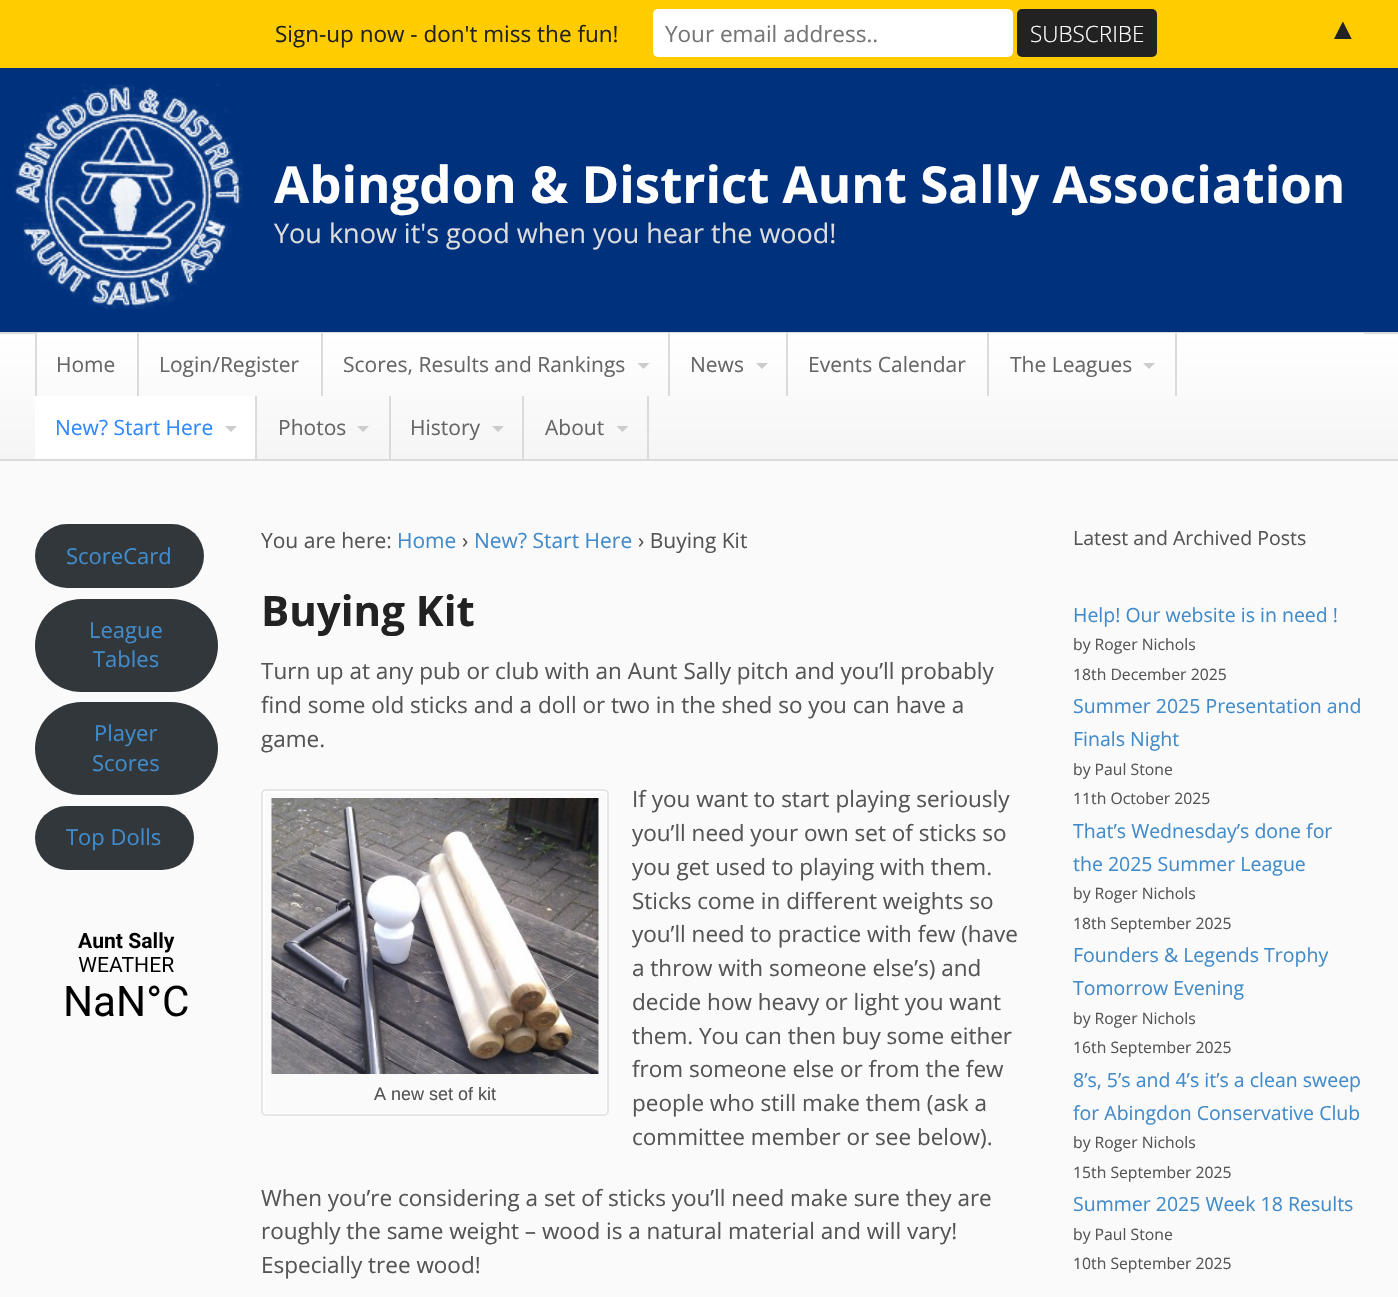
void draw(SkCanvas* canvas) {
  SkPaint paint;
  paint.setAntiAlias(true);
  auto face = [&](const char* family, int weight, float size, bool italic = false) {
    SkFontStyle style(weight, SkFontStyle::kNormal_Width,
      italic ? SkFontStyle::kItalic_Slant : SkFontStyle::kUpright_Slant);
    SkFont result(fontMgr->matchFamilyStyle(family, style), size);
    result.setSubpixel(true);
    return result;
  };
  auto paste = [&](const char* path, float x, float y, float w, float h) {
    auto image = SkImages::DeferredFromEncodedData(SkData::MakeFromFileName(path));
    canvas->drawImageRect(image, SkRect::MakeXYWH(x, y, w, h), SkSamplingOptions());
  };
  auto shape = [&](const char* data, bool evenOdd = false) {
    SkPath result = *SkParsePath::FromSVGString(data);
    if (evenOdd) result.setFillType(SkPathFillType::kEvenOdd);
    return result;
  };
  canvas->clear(0xfffafafa);
  paint.setColor(0xffffcc00);
  canvas->drawRect(SkRect::MakeXYWH(0, 0, 1398, 68), paint);
  paint.setColor(0xffffffff);
  canvas->drawRoundRect(SkRect::MakeXYWH(654, 10, 358, 46), 4, 4, paint);
  paint.setStroke(true);
  paint.setStrokeWidth(2);
  canvas->drawRoundRect(SkRect::MakeXYWH(654, 10, 358, 46), 4, 4, paint);
  paint.setStroke(false);
  paint.setColor(0xff222222);
  canvas->drawRoundRect(SkRect::MakeXYWH(1018, 10, 138, 46), 4, 4, paint);
  paint.setStroke(true);
  canvas->drawRoundRect(SkRect::MakeXYWH(1018, 10, 138, 46), 4, 4, paint);
  paint.setStroke(false);
  paint.setColor(0xff00317d);
  canvas->drawRect(SkRect::MakeXYWH(0, 68, 1398, 264), paint);
  paste("img/1.png", 13, 84, 230, 225);
  {
    const SkColor colors[] = {0xffffffff, 0xfff5f5f5};
    const float stops[] = {0, 1};
    const SkPoint ends[] = {{699, 333}, {699, 459}};
    paint.setShader(SkGradientShader::MakeLinear(ends, colors, stops, 2, SkTileMode::kClamp));
    paint.setAlpha(255);
  }
  canvas->drawRect(SkRect::MakeXYWH(0, 334, 1398, 125), paint);
  paint.setShader(nullptr);
  paint.setColor(0xffdbdbdb);
  canvas->drawRect(SkRect::MakeXYWH(0, 332, 1398, 2), paint);
  canvas->drawRect(SkRect::MakeXYWH(0, 459, 1398, 2), paint);
  {
    const SkColor colors[] = {0xffffffff, 0xfff5f5f5};
    const float stops[] = {0, 1};
    const SkPoint ends[] = {{699, 333}, {699, 459}};
    paint.setShader(SkGradientShader::MakeLinear(ends, colors, stops, 2, SkTileMode::kClamp));
    paint.setAlpha(255);
  }
  canvas->drawRect(SkRect::MakeXYWH(37, 333, 1327, 1), paint);
  paint.setShader(nullptr);
  {
    const struct { float x, y, w, h; SkColor color; } items[] = {
      {137, 333, 2, 63, 0xffdbdbdb},
      {35, 333, 2, 63, 0xffdbdbdb},
      {321, 333, 2, 63, 0xffdbdbdb},
      {668, 333, 2, 63, 0xffdbdbdb},
    };
    for (auto [x, y, w, h, color] : items) {
      paint.setColor(color);
      canvas->drawRect(SkRect::MakeXYWH(x, y, w, h), paint);
    }
  }
  paint.setColor(0xffcccccc);
  canvas->drawPath(shape("M637.5 363H649.5L643.5 369Z"), paint);
  paint.setColor(0xffdbdbdb);
  canvas->drawRect(SkRect::MakeXYWH(786, 333, 2, 63), paint);
  paint.setColor(0xffcccccc);
  canvas->drawPath(shape("M756 363H768L762 369Z"), paint);
  paint.setColor(0xffdbdbdb);
  canvas->drawRect(SkRect::MakeXYWH(987, 333, 2, 63), paint);
  canvas->drawRect(SkRect::MakeXYWH(1175, 333, 2, 63), paint);
  paint.setColor(0xffcccccc);
  canvas->drawPath(shape("M1143 363H1155L1149 369Z"), paint);
  paint.setColor(0xffdbdbdb);
  canvas->drawRect(SkRect::MakeXYWH(255, 396, 2, 63), paint);
  paint.setColor(0xffffffff);
  canvas->drawRect(SkRect::MakeXYWH(35, 396, 220, 63), paint);
  paint.setColor(0xffcccccc);
  canvas->drawPath(shape("M225 426H237L231 432Z"), paint);
  paint.setColor(0xffdbdbdb);
  canvas->drawRect(SkRect::MakeXYWH(389, 396, 2, 63), paint);
  paint.setColor(0xffcccccc);
  canvas->drawPath(shape("M357 426H369L363 432Z"), paint);
  paint.setColor(0xffdbdbdb);
  canvas->drawRect(SkRect::MakeXYWH(522, 396, 2, 63), paint);
  paint.setColor(0xffcccccc);
  canvas->drawPath(shape("M492 426H504L498 432Z"), paint);
  paint.setColor(0xffdbdbdb);
  canvas->drawRect(SkRect::MakeXYWH(647, 396, 2, 63), paint);
  paint.setColor(0xffcccccc);
  canvas->drawPath(shape("M616.5 426H628.5L622.5 432Z"), paint);
  paint.setColor(0xff32373c);
  canvas->drawRoundRect(SkRect::MakeXYWH(35, 524, 169, 64), 32, 32, paint);
  canvas->drawRoundRect(SkRect::MakeXYWH(35, 599, 183, 93), 46.5f, 46.5f, paint);
  canvas->drawRoundRect(SkRect::MakeXYWH(35, 702, 183, 93), 46.5f, 46.5f, paint);
  canvas->drawRoundRect(SkRect::MakeXYWH(35, 806, 159, 64), 32, 32, paint);
  paste("img/2.png", 66, 932, 122, 85);
  paint.setStroke(true);
  paint.setColor(0xffffffff);
  canvas->drawRoundRect(SkRect::MakeXYWH(264, 792, 343, 322), 2, 2, paint);
  paint.setColor(0xffe6e6e6);
  canvas->drawRoundRect(SkRect::MakeXYWH(262, 790, 346, 325), 4, 4, paint);
  paste("img/3.png", 271, 798, 328, 276);
  auto f0 = face("Open Sans", 400, 22.5f);
  paint.setStroke(false);
  paint.setColor(0xff222222);
  canvas->drawString("Sign-up now - don't miss the fun!", 275, 42, f0, paint);
  paint.setColor(0xff757575);
  canvas->drawString("Your email address..", 665, 42, f0, paint);
  auto f1 = face("Open Sans", 300, 22.5f);
  paint.setColor(0xffffffff);
  canvas->drawString("SUBSCRIBE", 1030, 42, f1, paint);
  auto f2 = face("Liberation Sans", 400, 30);
  paint.setColor(0xff222222);
  canvas->drawString("▲", 1328, 39, f2, paint);
  auto f3 = face("Open Sans", 700, 51);
  paint.setColor(0xffffffff);
  canvas->drawString("Abingdon & District Aunt Sally Association", 274, 203, f3, paint);
  auto f4 = face("Open Sans", 400, 27);
  paint.setColor(0xffdddddd);
  canvas->drawString("You know it's good when you hear the wood!", 274, 243, f4, paint);
  auto f5 = face("Open Sans", 400, 21);
  paint.setColor(0xff666666);
  {
    const struct { const char* s; float x, y; } items[] = {
      {"Home", 56, 372},
      {"Login/Register", 159, 372},
      {"Scores, Results and Rankings", 343, 372},
      {"News", 690, 372},
      {"Events Calendar", 808, 372},
      {"The Leagues", 1010, 372},
    };
    for (auto [s, x, y] : items) {
      canvas->drawString(s, x, y, f5, paint);
    }
  }
  paint.setColor(0xff3088ff);
  canvas->drawString("New? Start Here", 55, 435, f5, paint);
  paint.setColor(0xff666666);
  {
    const struct { const char* s; float x, y; } items[] = {
      {"Photos", 278, 435},
      {"History", 410, 435},
      {"About", 545, 435},
    };
    for (auto [s, x, y] : items) {
      canvas->drawString(s, x, y, f5, paint);
    }
  }
  auto f6 = face("Open Sans", 400, 22);
  paint.setColor(0xff428bca);
  {
    const struct { const char* s; float x, y; } items[] = {
      {"ScoreCard", 66, 564},
      {"League", 89, 638},
      {"Tables", 93, 667},
      {"Player", 94, 741},
      {"Scores", 92, 771},
      {"Top Dolls", 66, 845},
    };
    for (auto [s, x, y] : items) {
      canvas->drawString(s, x, y, f6, paint);
    }
  }
  paint.setColor(0xff555555);
  canvas->drawString("You are here:", 261, 548, f5, paint);
  paint.setColor(0xff428bca);
  canvas->drawString("Home", 397, 548, f5, paint);
  paint.setColor(0xff555555);
  canvas->drawString("›", 462, 548, f5, paint);
  paint.setColor(0xff428bca);
  canvas->drawString("New? Start Here", 474, 548, f5, paint);
  paint.setColor(0xff555555);
  canvas->drawString("› Buying Kit", 638, 548, f5, paint);
  auto f7 = face("Open Sans", 700, 42);
  paint.setColor(0xff222222);
  canvas->drawString("Buying Kit", 261, 626, f7, paint);
  paint.setColor(0xff555555);
  {
    const struct { const char* s; float x, y; } items[] = {
      {"Turn up at any pub or club with an Aunt Sally pitch and you’ll probably", 261, 679},
      {"find some old sticks and a doll or two in the shed so you can have a", 261, 713},
      {"game.", 261, 747},
    };
    for (auto [s, x, y] : items) {
      canvas->drawString(s, x, y, f0, paint);
    }
  }
  auto f8 = face("Liberation Sans", 400, 18);
  canvas->drawString("A new set of kit", 374, 1100, f8, paint);
  {
    const struct { const char* s; float x, y; } items[] = {
      {"If you want to start playing seriously", 632, 807},
      {"you’ll need your own set of sticks so", 632, 841},
      {"you get used to playing with them.", 632, 875},
      {"Sticks come in different weights so", 632, 909},
      {"you’ll need to practice with few (have", 632, 942},
      {"a throw with someone else’s) and", 632, 976},
      {"decide how heavy or light you want", 632, 1010},
      {"them. You can then buy some either", 632, 1044},
      {"from someone else or from the few", 632, 1077},
      {"people who still make them (ask a", 632, 1111},
      {"committee member or see below).", 632, 1145},
      {"When you’re considering a set of sticks you’ll need make sure they are", 261, 1206},
      {"roughly the same weight – wood is a natural material and will vary!", 261, 1239},
      {"Especially tree wood!", 261, 1273},
    };
    for (auto [s, x, y] : items) {
      canvas->drawString(s, x, y, f0, paint);
    }
  }
  auto f9 = face("Open Sans", 400, 19.5f);
  canvas->drawString("Latest and Archived Posts", 1073, 545, f9, paint);
  paint.setColor(0xff428bca);
  canvas->drawString("Help! Our website is in need !", 1073, 622, f9, paint);
  auto f10 = face("Open Sans", 400, 15.75f);
  paint.setColor(0xff555555);
  canvas->drawString("by Roger Nichols", 1073, 650, f10, paint);
  canvas->drawString("18th December 2025", 1073, 680, f10, paint);
  paint.setColor(0xff428bca);
  canvas->drawString("Summer 2025 Presentation and", 1073, 713, f9, paint);
  canvas->drawString("Finals Night", 1073, 746, f9, paint);
  paint.setColor(0xff555555);
  canvas->drawString("by Paul Stone", 1073, 775, f10, paint);
  canvas->drawString("11th October 2025", 1073, 804, f10, paint);
  paint.setColor(0xff428bca);
  canvas->drawString("That’s Wednesday’s done for", 1073, 838, f9, paint);
  canvas->drawString("the 2025 Summer League", 1073, 871, f9, paint);
  paint.setColor(0xff555555);
  canvas->drawString("by Roger Nichols", 1073, 899, f10, paint);
  canvas->drawString("18th September 2025", 1073, 929, f10, paint);
  paint.setColor(0xff428bca);
  canvas->drawString("Founders & Legends Trophy", 1073, 962, f9, paint);
  canvas->drawString("Tomorrow Evening", 1073, 995, f9, paint);
  paint.setColor(0xff555555);
  canvas->drawString("by Roger Nichols", 1073, 1024, f10, paint);
  canvas->drawString("16th September 2025", 1073, 1053, f10, paint);
  paint.setColor(0xff428bca);
  canvas->drawString("8’s, 5’s and 4’s it’s a clean sweep", 1073, 1087, f9, paint);
  canvas->drawString("for Abingdon Conservative Club", 1073, 1120, f9, paint);
  paint.setColor(0xff555555);
  canvas->drawString("by Roger Nichols", 1073, 1148, f10, paint);
  canvas->drawString("15th September 2025", 1073, 1178, f10, paint);
  paint.setColor(0xff428bca);
  canvas->drawString("Summer 2025 Week 18 Results", 1073, 1211, f9, paint);
  paint.setColor(0xff555555);
  canvas->drawString("by Paul Stone", 1073, 1240, f10, paint);
  canvas->drawString("10th September 2025", 1073, 1269, f10, paint);
}
